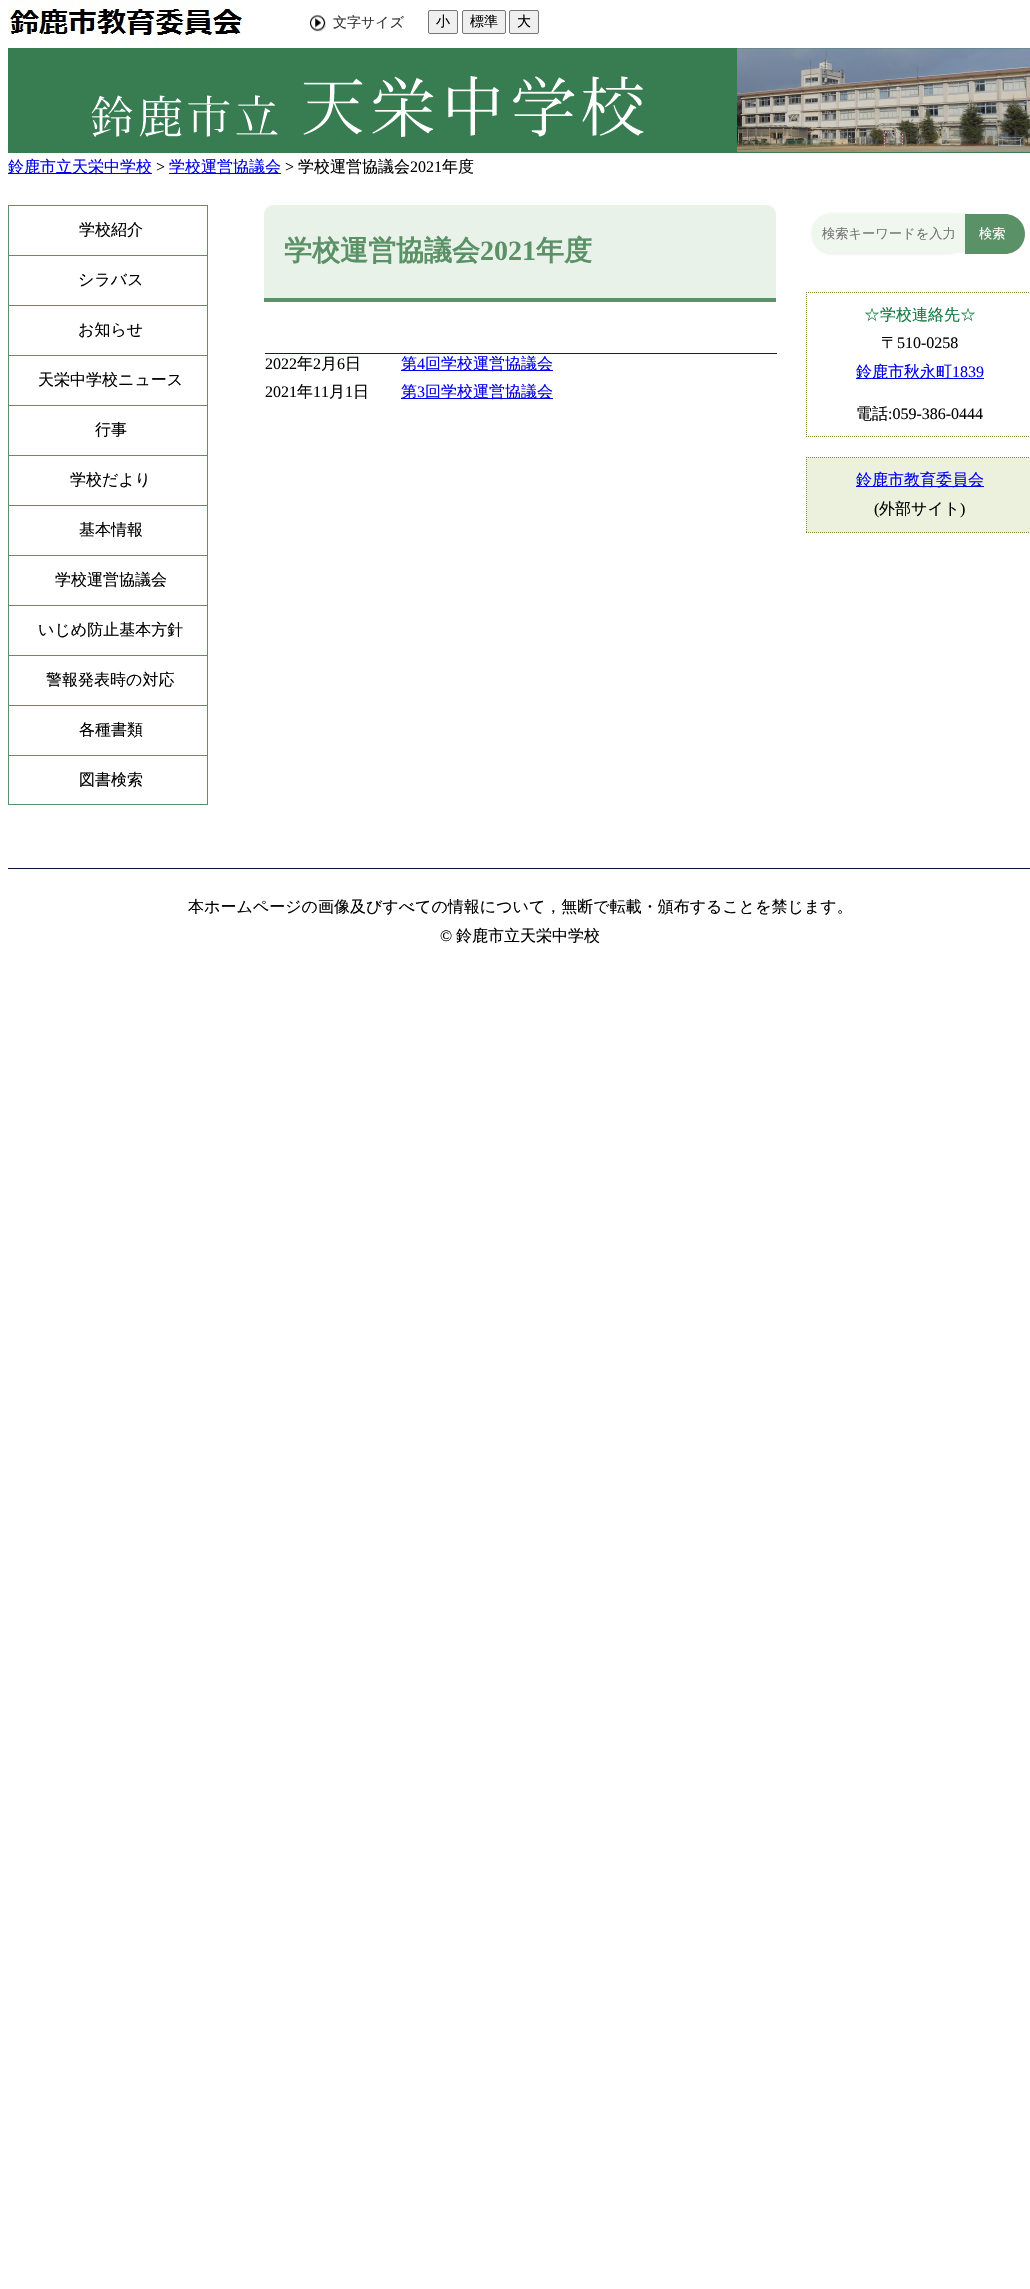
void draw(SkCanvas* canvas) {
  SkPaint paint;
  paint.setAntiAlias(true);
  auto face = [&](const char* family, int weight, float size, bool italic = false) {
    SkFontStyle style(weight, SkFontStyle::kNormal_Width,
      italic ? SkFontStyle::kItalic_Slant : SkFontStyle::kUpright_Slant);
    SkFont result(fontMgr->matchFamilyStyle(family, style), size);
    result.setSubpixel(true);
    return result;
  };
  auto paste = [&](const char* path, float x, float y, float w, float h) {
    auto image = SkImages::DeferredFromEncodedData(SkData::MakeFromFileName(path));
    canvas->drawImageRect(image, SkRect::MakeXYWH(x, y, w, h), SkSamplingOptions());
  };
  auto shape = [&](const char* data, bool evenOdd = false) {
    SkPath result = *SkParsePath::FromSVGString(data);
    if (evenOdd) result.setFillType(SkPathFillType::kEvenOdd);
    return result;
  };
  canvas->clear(0xffffffff);
  paste("img/1.png", 8, 0, 237, 44);
  paste("img/2.png", 310, 15, 16, 17);
  paint.setColor(0xffefefef);
  canvas->drawRoundRect(SkRect::MakeXYWH(428.5f, 10.5f, 29, 23), 1.5f, 1.5f, paint);
  paint.setStroke(true);
  paint.setStrokeWidth(1);
  paint.setColor(0xff767676);
  canvas->drawRoundRect(SkRect::MakeXYWH(428.5f, 10.5f, 29, 23), 1.5f, 1.5f, paint);
  paint.setStroke(false);
  paint.setColor(0xffefefef);
  canvas->drawRoundRect(SkRect::MakeXYWH(462.5f, 10.5f, 43, 23), 1.5f, 1.5f, paint);
  paint.setStroke(true);
  paint.setColor(0xff767676);
  canvas->drawRoundRect(SkRect::MakeXYWH(462.5f, 10.5f, 43, 23), 1.5f, 1.5f, paint);
  paint.setStroke(false);
  paint.setColor(0xffefefef);
  canvas->drawRoundRect(SkRect::MakeXYWH(509.5f, 10.5f, 29, 23), 1.5f, 1.5f, paint);
  paint.setStroke(true);
  paint.setColor(0xff767676);
  canvas->drawRoundRect(SkRect::MakeXYWH(509.5f, 10.5f, 29, 23), 1.5f, 1.5f, paint);
  paste("img/3.png", 8, 48, 1022, 105);
  paint.setStroke(false);
  {
    const struct { float x, y, w, h; SkColor color; } items[] = {
      {8, 173, 144, 1, 0xff0000ee},
      {169, 173, 112, 1, 0xff0000ee},
      {8, 205, 200, 1, 0xff5b9167},
      {207, 205, 1, 50, 0xff5b9167},
      {8, 205, 1, 50, 0xff5b9167},
      {8, 255, 200, 1, 0xff5b9167},
      {207, 255, 1, 50, 0xff5b9167},
      {8, 255, 1, 50, 0xff5b9167},
      {8, 305, 200, 1, 0xff5b9167},
      {207, 305, 1, 50, 0xff5b9167},
      {8, 305, 1, 50, 0xff5b9167},
      {8, 355, 200, 1, 0xff5b9167},
      {207, 355, 1, 50, 0xff5b9167},
      {8, 355, 1, 50, 0xff5b9167},
      {8, 405, 200, 1, 0xff5b9167},
      {207, 405, 1, 50, 0xff5b9167},
      {8, 405, 1, 50, 0xff5b9167},
      {8, 455, 200, 1, 0xff5b9167},
      {207, 455, 1, 50, 0xff5b9167},
      {8, 455, 1, 50, 0xff5b9167},
      {8, 505, 200, 1, 0xff5b9167},
      {207, 505, 1, 50, 0xff5b9167},
      {8, 505, 1, 50, 0xff5b9167},
      {8, 555, 200, 1, 0xff5b9167},
      {207, 555, 1, 50, 0xff5b9167},
      {8, 555, 1, 50, 0xff5b9167},
      {8, 605, 200, 1, 0xff5b9167},
      {207, 605, 1, 50, 0xff5b9167},
      {8, 605, 1, 50, 0xff5b9167},
      {8, 655, 200, 1, 0xff5b9167},
      {207, 655, 1, 50, 0xff5b9167},
      {8, 655, 1, 50, 0xff5b9167},
      {8, 705, 200, 1, 0xff5b9167},
      {207, 705, 1, 50, 0xff5b9167},
      {8, 705, 1, 50, 0xff5b9167},
    };
    for (auto [x, y, w, h, color] : items) {
      paint.setColor(color);
      canvas->drawRect(SkRect::MakeXYWH(x, y, w, h), paint);
    }
  }
  paint.setStroke(true);
  canvas->drawRect(SkRect::MakeXYWH(8.5f, 755.5f, 199, 49), paint);
  paint.setStroke(false);
  paint.setColor(0xffe9f2e8);
  canvas->drawPath(shape("M274 205H766C771.5 205 776 209.5 776 215V302H264V215C264 209.5 268.5 205 274 205Z"), paint);
  {
    const struct { float x, y, w, h; SkColor color; } items[] = {
      {264, 298, 512, 4, 0xff5b9167},
      {265, 353, 512, 1, 0xff081f51},
      {401, 370, 152, 1, 0xff0000ee},
      {401, 398, 152, 1, 0xff0000ee},
    };
    for (auto [x, y, w, h, color] : items) {
      paint.setColor(color);
      canvas->drawRect(SkRect::MakeXYWH(x, y, w, h), paint);
    }
  }
  paint.setColor(0x14000000);
  paint.setMaskFilter(SkMaskFilter::MakeBlur(kNormal_SkBlurStyle, 1.5f));
  canvas->drawRoundRect(SkRect::MakeXYWH(812, 214, 155, 40), 20, 20, paint);
  paint.setMaskFilter(nullptr);
  paint.setColor(0xfff0f7ef);
  canvas->drawPath(shape("M832 213H967V253H832C821 253 812 244 812 233C812 222 821 213 832 213Z"), paint);
  paint.setColor(0xff5b9167);
  canvas->drawPath(shape("M965 214H1005C1016 214 1025 223 1025 234C1025 245 1016 254 1005 254H965Z"), paint);
  paint.setStroke(true);
  paint.setColor(0xff76923c);
  paint.setPathEffect(SkDashPathEffect::Make({{1, 1}}, 0));
  canvas->drawPath(shape("M806 292.5H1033"), paint);
  paint.setPathEffect(nullptr);
  paint.setPathEffect(SkDashPathEffect::Make({{1, 1}}, 0));
  canvas->drawPath(shape("M806 436.5H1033"), paint);
  paint.setPathEffect(nullptr);
  paint.setPathEffect(SkDashPathEffect::Make({{1, 1}}, 0));
  canvas->drawPath(shape("M806.5 292V437"), paint);
  paint.setPathEffect(nullptr);
  paint.setStroke(false);
  paint.setColor(0xff0000ee);
  canvas->drawRect(SkRect::MakeXYWH(856, 378, 128, 1), paint);
  paint.setColor(0xffebf1dd);
  canvas->drawRect(SkRect::MakeXYWH(806, 457, 224, 76), paint);
  paint.setStroke(true);
  paint.setColor(0xff76923c);
  paint.setPathEffect(SkDashPathEffect::Make({{1, 1}}, 0));
  canvas->drawPath(shape("M806 457.5H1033"), paint);
  paint.setPathEffect(nullptr);
  paint.setPathEffect(SkDashPathEffect::Make({{1, 1}}, 0));
  canvas->drawPath(shape("M806 532.5H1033"), paint);
  paint.setPathEffect(nullptr);
  paint.setPathEffect(SkDashPathEffect::Make({{1, 1}}, 0));
  canvas->drawPath(shape("M806.5 457V533"), paint);
  paint.setPathEffect(nullptr);
  paint.setStroke(false);
  paint.setColor(0xff0000ee);
  canvas->drawRect(SkRect::MakeXYWH(856, 486, 128, 1), paint);
  paint.setColor(0xff051536);
  canvas->drawRect(SkRect::MakeXYWH(8, 868, 1022, 1), paint);
  auto f0 = face("WenQuanYi Zen Hei", 500, 14);
  paint.setColor(0xff333333);
  canvas->drawString("文字サイズ", 333, 27, f0, paint);
  paint.setColor(0xff000000);
  {
    const struct { const char* s; float x, y; } items[] = {
      {"小", 436, 26},
      {"標準", 470, 26},
      {"大", 517, 26},
    };
    for (auto [s, x, y] : items) {
      canvas->drawString(s, x, y, f0, paint);
    }
  }
  auto f1 = face("WenQuanYi Zen Hei", 500, 16);
  paint.setColor(0xff0000ee);
  canvas->drawString("鈴鹿市立天栄中学校", 8, 172, f1, paint);
  auto f2 = face("Liberation Serif", 400, 16);
  paint.setColor(0xff000000);
  canvas->drawString(">", 156, 172, f2, paint);
  paint.setColor(0xff0000ee);
  canvas->drawString("学校運営協議会", 169, 172, f1, paint);
  paint.setColor(0xff000000);
  canvas->drawString(">", 285, 172, f2, paint);
  canvas->drawString("学校運営協議会", 298, 172, f1, paint);
  canvas->drawString("2021", 410, 172, f2, paint);
  {
    const struct { const char* s; float x, y; } items[] = {
      {"年度", 442, 172},
      {"学校紹介", 79, 235},
      {"シラバス", 78, 285},
      {"お知らせ", 78, 335},
      {"天栄中学校ニュース", 38, 385},
      {"行事", 95, 435},
      {"学校だより", 70, 485},
      {"基本情報", 79, 535},
      {"学校運営協議会", 55, 585},
      {"いじめ防止基本方針", 38, 635},
      {"警報発表時の対応", 46, 685},
      {"各種書類", 79, 735},
      {"図書検索", 79, 785},
    };
    for (auto [s, x, y] : items) {
      canvas->drawString(s, x, y, f1, paint);
    }
  }
  auto f3 = face("WenQuanYi Zen Hei", 700, 28);
  paint.setColor(0xff5b9167);
  canvas->drawString("学校運営協議会", 284, 260, f3, paint);
  auto f4 = face("Liberation Serif", 700, 28);
  canvas->drawString("2021", 480, 260, f4, paint);
  canvas->drawString("年度", 536, 260, f3, paint);
  paint.setColor(0xff000000);
  canvas->drawString("2022", 265, 369, f2, paint);
  canvas->drawString("年", 297, 369, f1, paint);
  canvas->drawString("2", 313, 369, f2, paint);
  canvas->drawString("月", 321, 369, f1, paint);
  canvas->drawString("6", 337, 369, f2, paint);
  canvas->drawString("日", 345, 369, f1, paint);
  paint.setColor(0xff0000ee);
  canvas->drawString("第", 401, 369, f1, paint);
  canvas->drawString("4", 417, 369, f2, paint);
  canvas->drawString("回学校運営協議会", 425, 369, f1, paint);
  paint.setColor(0xff000000);
  canvas->drawString("2021", 265, 397, f2, paint);
  canvas->drawString("年", 297, 397, f1, paint);
  canvas->drawString("11", 313, 397, f2, paint);
  canvas->drawString("月", 329, 397, f1, paint);
  canvas->drawString("1", 345, 397, f2, paint);
  canvas->drawString("日", 353, 397, f1, paint);
  paint.setColor(0xff0000ee);
  canvas->drawString("第", 401, 397, f1, paint);
  canvas->drawString("3", 417, 397, f2, paint);
  canvas->drawString("回学校運営協議会", 425, 397, f1, paint);
  auto f5 = face("WenQuanYi Zen Hei", 500, 13.25f);
  paint.setColor(0xff757575);
  canvas->drawString("検索キーワードを入力", 822, 238, f5, paint);
  paint.setColor(0xffffffff);
  canvas->drawString("検索", 979, 238, f5, paint);
  paint.setColor(0xff11783e);
  canvas->drawString("☆学校連絡先☆", 864, 320, f1, paint);
  paint.setColor(0xff000000);
  canvas->drawString("〒", 881, 348, f1, paint);
  canvas->drawString("510-0258", 897, 348, f2, paint);
  paint.setColor(0xff0000ee);
  canvas->drawString("鈴鹿市秋永町", 856, 377, f1, paint);
  canvas->drawString("1839", 952, 377, f2, paint);
  paint.setColor(0xff000000);
  canvas->drawString("電話", 856, 419, f1, paint);
  canvas->drawString(":059-386-0444", 888, 419, f2, paint);
  paint.setColor(0xff0000ee);
  canvas->drawString("鈴鹿市教育委員会", 856, 485, f1, paint);
  paint.setColor(0xff000000);
  canvas->drawString("(", 874, 514, f2, paint);
  canvas->drawString("外部サイト", 879, 514, f1, paint);
  canvas->drawString(")", 960, 514, f2, paint);
  canvas->drawString("本ホームページの画像及びすべての情報について，無断で転載・頒布することを禁じます。", 188, 912, f1, paint);
  canvas->drawString("©", 440, 941, f2, paint);
  canvas->drawString("鈴鹿市立天栄中学校", 456, 941, f1, paint);
}
